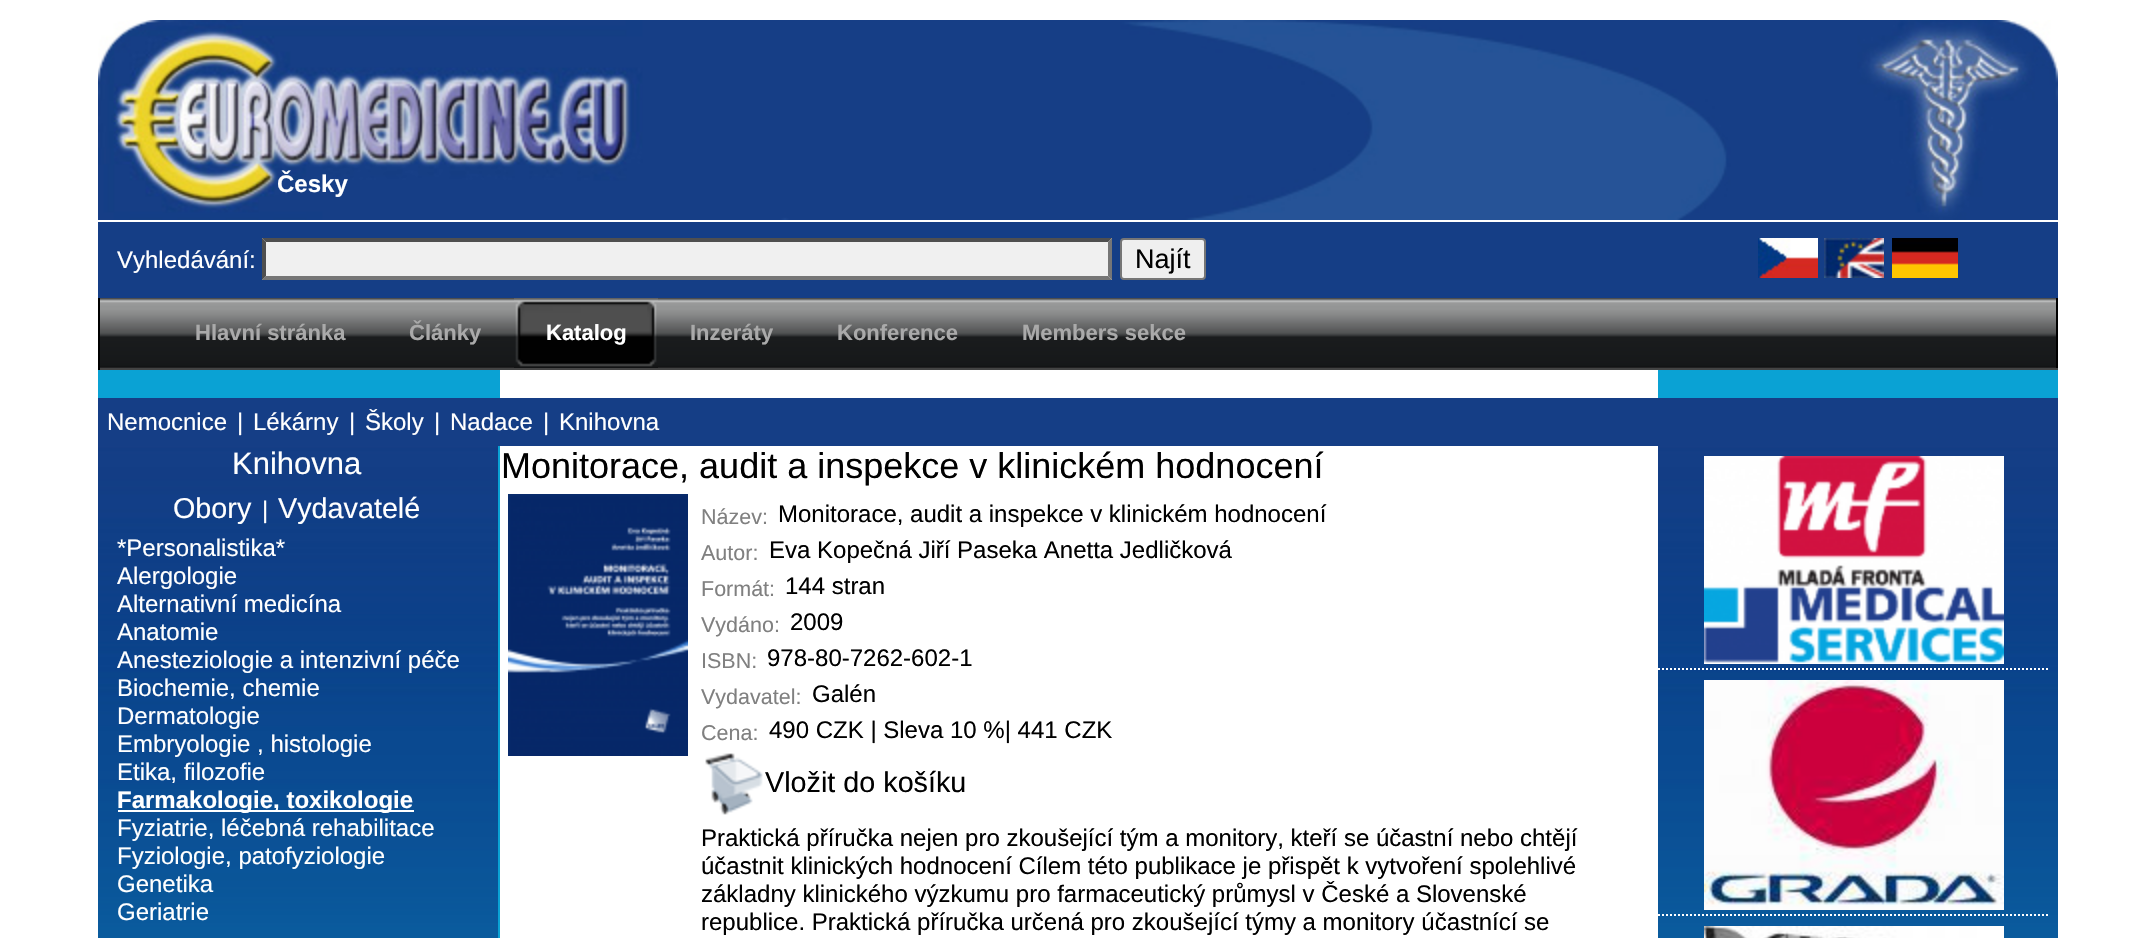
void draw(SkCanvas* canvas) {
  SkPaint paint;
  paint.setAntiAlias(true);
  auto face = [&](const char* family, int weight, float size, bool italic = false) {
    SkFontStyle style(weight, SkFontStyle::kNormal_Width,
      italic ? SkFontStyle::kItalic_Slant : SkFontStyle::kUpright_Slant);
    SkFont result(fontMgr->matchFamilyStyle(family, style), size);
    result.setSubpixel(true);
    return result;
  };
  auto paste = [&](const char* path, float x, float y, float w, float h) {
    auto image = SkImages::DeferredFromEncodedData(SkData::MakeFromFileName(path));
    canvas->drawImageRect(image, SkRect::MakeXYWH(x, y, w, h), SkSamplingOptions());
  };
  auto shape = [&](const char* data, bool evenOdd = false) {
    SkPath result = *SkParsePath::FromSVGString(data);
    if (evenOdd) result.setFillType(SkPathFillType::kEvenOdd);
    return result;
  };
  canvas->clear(0xffffffff);
  paste("img/1.png", 98, 20, 1960, 200);
  paint.setColor(0xff153e86);
  canvas->drawRect(SkRect::MakeXYWH(98, 222, 1960, 76), paint);
  paint.setColor(0xfff0f0f0);
  canvas->drawRect(SkRect::MakeXYWH(262, 238, 850, 42), paint);
  paint.setColor(0xff4f4f4f);
  canvas->drawPath(shape("M262 238H1112L1108 242H266Z"), paint);
  paint.setColor(0xff767676);
  canvas->drawPath(shape("M1112 238V280L1108 276V242Z"), paint);
  canvas->drawPath(shape("M1112 280H262L266 276H1108Z"), paint);
  paint.setColor(0xff4f4f4f);
  canvas->drawPath(shape("M262 280V238L266 242V276Z"), paint);
  paint.setColor(0xffefefef);
  canvas->drawRoundRect(SkRect::MakeXYWH(1121, 239, 84, 40), 3, 3, paint);
  paint.setStroke(true);
  paint.setStrokeWidth(2);
  paint.setColor(0xff767676);
  canvas->drawRoundRect(SkRect::MakeXYWH(1121, 239, 84, 40), 3, 3, paint);
  paste("img/2.png", 1758, 238, 60, 40);
  paste("img/3.png", 1824, 238, 60, 40);
  paste("img/4.png", 1892, 238, 66, 40);
  paste("img/5.png", 100, 298, 1956, 70);
  paint.setStroke(false);
  {
    const struct { float x, y, w, h; SkColor color; } items[] = {
      {2056, 298, 2, 72, 0xff000000},
      {98, 368, 1960, 2, 0xff444444},
      {98, 298, 2, 72, 0xff000000},
    };
    for (auto [x, y, w, h, color] : items) {
      paint.setColor(color);
      canvas->drawRect(SkRect::MakeXYWH(x, y, w, h), paint);
    }
  }
  paste("img/6.png", 514, 298, 144, 70);
  paste("img/7.png", 647, 301, 11, 66);
  {
    const struct { float x, y, w, h; SkColor color; } items[] = {
      {98, 370, 402, 568, 0xff0aa2d4},
      {1658, 370, 400, 28, 0xff0aa2d4},
      {98, 398, 1960, 48, 0xff153e86},
    };
    for (auto [x, y, w, h, color] : items) {
      paint.setColor(color);
      canvas->drawRect(SkRect::MakeXYWH(x, y, w, h), paint);
    }
  }
  paste("img/8.png", 98, 446, 400, 492);
  paint.setColor(0xffffffff);
  canvas->drawRect(SkRect::MakeXYWH(118, 810, 296, 2), paint);
  paste("img/9.png", 508, 494, 180, 262);
  paste("img/10.png", 705, 753, 58, 62);
  paste("img/8.png", 1658, 446, 400, 492);
  paint.setStroke(true);
  paint.setPathEffect(SkDashPathEffect::Make({{2, 2}}, 0));
  canvas->drawPath(shape("M1658 669H2050"), paint);
  paint.setPathEffect(nullptr);
  paste("img/11.png", 1704, 456, 300, 208);
  paint.setPathEffect(SkDashPathEffect::Make({{2, 2}}, 0));
  canvas->drawPath(shape("M1658 915H2050"), paint);
  paint.setPathEffect(nullptr);
  paste("img/12.png", 1704, 680, 300, 230);
  paste("img/13.png", 1704, 926, 300, 12);
  auto f0 = face("Liberation Sans", 700, 24);
  paint.setStroke(false);
  canvas->drawString("Česky", 277, 192, f0, paint);
  auto f1 = face("Liberation Sans", 400, 24);
  canvas->drawString("Vyhledávání:", 117, 268, f1, paint);
  auto f2 = face("Liberation Sans", 400, 27);
  paint.setColor(0xff000000);
  canvas->drawString("Najít", 1135, 268, f2, paint);
  auto f3 = face("Liberation Sans", 700, 22);
  paint.setColor(0xffaaaaaa);
  canvas->drawString("Hlavní stránka", 195, 340, f3, paint);
  canvas->drawString("Články", 409, 340, f3, paint);
  paint.setColor(0xffffffff);
  canvas->drawString("Katalog", 546, 340, f3, paint);
  paint.setColor(0xffaaaaaa);
  {
    const struct { const char* s; float x, y; } items[] = {
      {"Inzeráty", 690, 340},
      {"Konference", 837, 340},
      {"Members sekce", 1022, 340},
    };
    for (auto [s, x, y] : items) {
      canvas->drawString(s, x, y, f3, paint);
    }
  }
  paint.setColor(0xffffffff);
  {
    const struct { const char* s; float x, y; } items[] = {
      {"Nemocnice", 107, 430},
      {"|", 237, 430},
      {"Lékárny", 253, 430},
      {"|", 349, 430},
      {"Školy", 365, 430},
      {"|", 434, 430},
      {"Nadace", 450, 430},
      {"|", 543, 430},
      {"Knihovna", 559, 430},
    };
    for (auto [s, x, y] : items) {
      canvas->drawString(s, x, y, f1, paint);
    }
  }
  auto f4 = face("Liberation Sans", 400, 31);
  canvas->drawString("Knihovna", 232, 474, f4, paint);
  auto f5 = face("Liberation Sans", 400, 28.75f);
  canvas->drawString("Obory", 173, 518, f5, paint);
  canvas->drawString("|", 262, 518, f1, paint);
  canvas->drawString("Vydavatelé", 278, 518, f5, paint);
  {
    const struct { const char* s; float x, y; } items[] = {
      {"*Personalistika*", 117, 556},
      {"Alergologie", 117, 584},
      {"Alternativní medicína", 117, 612},
      {"Anatomie", 117, 640},
      {"Anesteziologie a intenzivní péče", 117, 668},
      {"Biochemie, chemie", 117, 696},
      {"Dermatologie", 117, 724},
      {"Embryologie , histologie", 117, 752},
      {"Etika, filozofie", 117, 780},
    };
    for (auto [s, x, y] : items) {
      canvas->drawString(s, x, y, f1, paint);
    }
  }
  canvas->drawString("Farmakologie, toxikologie", 117, 808, f0, paint);
  {
    const struct { const char* s; float x, y; } items[] = {
      {"Fyziatrie, léčebná rehabilitace", 117, 836},
      {"Fyziologie, patofyziologie", 117, 864},
      {"Genetika", 117, 892},
      {"Geriatrie", 117, 920},
    };
    for (auto [s, x, y] : items) {
      canvas->drawString(s, x, y, f1, paint);
    }
  }
  auto f6 = face("Liberation Sans", 400, 36);
  paint.setColor(0xff000000);
  canvas->drawString("Monitorace, audit a inspekce v klinickém hodnocení", 501, 478, f6, paint);
  auto f7 = face("Liberation Sans", 400, 21.5f);
  paint.setColor(0xff808080);
  canvas->drawString("Název:", 701, 524, f7, paint);
  paint.setColor(0xff000000);
  canvas->drawString("Monitorace, audit a inspekce v klinickém hodnocení", 778, 522, f1, paint);
  paint.setColor(0xff808080);
  canvas->drawString("Autor:", 701, 560, f7, paint);
  paint.setColor(0xff000000);
  canvas->drawString("Eva Kopečná Jiří Paseka Anetta Jedličková", 769, 558, f1, paint);
  paint.setColor(0xff808080);
  canvas->drawString("Formát:", 701, 596, f7, paint);
  paint.setColor(0xff000000);
  canvas->drawString("144 stran", 785, 594, f1, paint);
  paint.setColor(0xff808080);
  canvas->drawString("Vydáno:", 701, 632, f7, paint);
  paint.setColor(0xff000000);
  canvas->drawString("2009", 790, 630, f1, paint);
  paint.setColor(0xff808080);
  canvas->drawString("ISBN:", 701, 668, f7, paint);
  paint.setColor(0xff000000);
  canvas->drawString("978-80-7262-602-1", 767, 666, f1, paint);
  paint.setColor(0xff808080);
  canvas->drawString("Vydavatel:", 701, 704, f7, paint);
  paint.setColor(0xff000000);
  canvas->drawString("Galén", 812, 702, f1, paint);
  paint.setColor(0xff808080);
  canvas->drawString("Cena:", 701, 740, f7, paint);
  paint.setColor(0xff000000);
  canvas->drawString("490 CZK | Sleva 10 %| 441 CZK", 769, 738, f1, paint);
  canvas->drawString("Vložit do košíku", 765, 792, f5, paint);
  {
    const struct { const char* s; float x, y; } items[] = {
      {"Praktická příručka nejen pro zkoušející tým a monitory, kteří se účastní nebo chtějí", 701, 846},
      {"účastnit klinických hodnocení Cílem této publikace je přispět k vytvoření spolehlivé", 701, 874},
      {"základny klinického výzkumu pro farmaceutický průmysl v České a Slovenské", 701, 902},
      {"republice. Praktická příručka určená pro zkoušející týmy a monitory účastnící se", 701, 930},
    };
    for (auto [s, x, y] : items) {
      canvas->drawString(s, x, y, f1, paint);
    }
  }
}
